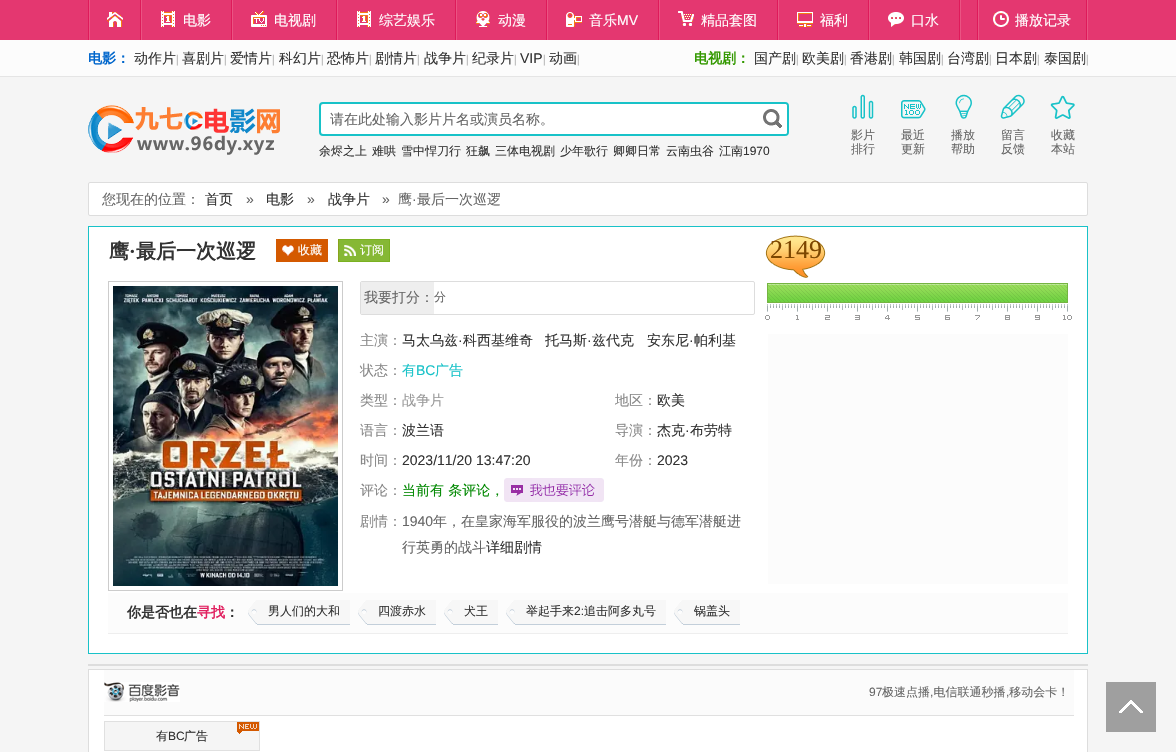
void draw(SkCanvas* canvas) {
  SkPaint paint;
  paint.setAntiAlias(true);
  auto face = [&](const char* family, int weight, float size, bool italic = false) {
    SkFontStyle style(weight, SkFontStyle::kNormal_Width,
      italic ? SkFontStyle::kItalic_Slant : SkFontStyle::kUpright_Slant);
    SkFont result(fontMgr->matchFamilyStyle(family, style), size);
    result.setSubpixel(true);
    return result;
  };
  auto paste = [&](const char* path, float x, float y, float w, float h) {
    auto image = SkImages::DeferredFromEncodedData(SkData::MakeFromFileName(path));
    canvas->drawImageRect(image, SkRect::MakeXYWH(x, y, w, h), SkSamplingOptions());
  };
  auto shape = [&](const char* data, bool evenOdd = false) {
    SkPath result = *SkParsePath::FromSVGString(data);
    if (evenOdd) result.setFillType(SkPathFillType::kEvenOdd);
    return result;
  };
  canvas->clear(0xfff5f5f5);
  {
    const struct { float x, y, w, h; SkColor color; } items[] = {
      {0, 0, 1176, 40, 0xffe43770},
      {960, 0, 1, 40, 0xffea5483},
      {88, 0, 1, 40, 0xffde1a5a},
      {140, 0, 1, 40, 0xffde1a5a},
      {89, 0, 1, 40, 0xffea5483},
    };
    for (auto [x, y, w, h, color] : items) {
      paint.setColor(color);
      canvas->drawRect(SkRect::MakeXYWH(x, y, w, h), paint);
    }
  }
  paste("img/1.png", 107, 12, 16, 15);
  paint.setColor(0xffde1a5a);
  canvas->drawRect(SkRect::MakeXYWH(231, 0, 1, 40), paint);
  paint.setColor(0xffea5483);
  canvas->drawRect(SkRect::MakeXYWH(141, 0, 1, 40), paint);
  paste("img/2.png", 161, 11, 14, 16);
  paint.setColor(0xffde1a5a);
  canvas->drawRect(SkRect::MakeXYWH(336, 0, 1, 40), paint);
  paint.setColor(0xffea5483);
  canvas->drawRect(SkRect::MakeXYWH(232, 0, 1, 40), paint);
  paste("img/3.png", 251, 11, 16, 16);
  paint.setColor(0xffde1a5a);
  canvas->drawRect(SkRect::MakeXYWH(455, 0, 1, 40), paint);
  paint.setColor(0xffea5483);
  canvas->drawRect(SkRect::MakeXYWH(337, 0, 1, 40), paint);
  paste("img/2.png", 357, 11, 14, 16);
  paint.setColor(0xffde1a5a);
  canvas->drawRect(SkRect::MakeXYWH(546, 0, 1, 40), paint);
  paint.setColor(0xffea5483);
  canvas->drawRect(SkRect::MakeXYWH(456, 0, 1, 40), paint);
  paste("img/4.png", 476, 11, 14, 16);
  paint.setColor(0xffde1a5a);
  canvas->drawRect(SkRect::MakeXYWH(658, 0, 1, 40), paint);
  paint.setColor(0xffea5483);
  canvas->drawRect(SkRect::MakeXYWH(547, 0, 1, 40), paint);
  paste("img/5.png", 566, 12, 16, 15);
  paint.setColor(0xffde1a5a);
  canvas->drawRect(SkRect::MakeXYWH(777, 0, 1, 40), paint);
  paint.setColor(0xffea5483);
  canvas->drawRect(SkRect::MakeXYWH(659, 0, 1, 40), paint);
  paste("img/6.png", 678, 11, 16, 15);
  paint.setColor(0xffde1a5a);
  canvas->drawRect(SkRect::MakeXYWH(868, 0, 1, 40), paint);
  paint.setColor(0xffea5483);
  canvas->drawRect(SkRect::MakeXYWH(778, 0, 1, 40), paint);
  paste("img/7.png", 797, 12, 16, 15);
  paint.setColor(0xffde1a5a);
  canvas->drawRect(SkRect::MakeXYWH(959, 0, 1, 40), paint);
  paint.setColor(0xffea5483);
  canvas->drawRect(SkRect::MakeXYWH(869, 0, 1, 40), paint);
  paste("img/8.png", 888, 12, 16, 15);
  {
    const struct { float x, y, w, h; SkColor color; } items[] = {
      {1087, 0, 1, 40, 0xffea5483},
      {977, 0, 1, 40, 0xffde1a5a},
      {1086, 0, 1, 40, 0xffde1a5a},
      {978, 0, 1, 40, 0xffea5483},
    };
    for (auto [x, y, w, h, color] : items) {
      paint.setColor(color);
      canvas->drawRect(SkRect::MakeXYWH(x, y, w, h), paint);
    }
  }
  paste("img/9.png", 993, 11, 16, 16);
  paint.setColor(0xfffcfcfc);
  canvas->drawRect(SkRect::MakeXYWH(0, 40, 1176, 36), paint);
  paint.setColor(0xffe5e5e5);
  canvas->drawRect(SkRect::MakeXYWH(0, 76, 1176, 1), paint);
  paste("img/10.png", 88, 105, 192, 50);
  paint.setColor(0xffffffff);
  canvas->drawRoundRect(SkRect::MakeXYWH(320, 103, 468, 32), 3, 3, paint);
  paint.setStroke(true);
  paint.setStrokeWidth(2);
  paint.setColor(0xff18c2c8);
  canvas->drawRoundRect(SkRect::MakeXYWH(320, 103, 468, 32), 3, 3, paint);
  paint.setStroke(false);
  paint.setColor(0xffffffff);
  canvas->drawPath(shape("M757 104H785C786 104 787 105 787 106V132C787 133 786 134 785 134H757Z"), paint);
  paste("img/11.png", 763, 109, 19, 19);
  paste("img/12.png", 852, 94, 22, 25);
  paste("img/13.png", 901, 100, 25, 19);
  paste("img/14.png", 955, 94, 17, 25);
  paste("img/15.png", 1000, 94, 25, 25);
  paste("img/16.png", 1050, 95, 25, 24);
  canvas->drawRoundRect(SkRect::MakeXYWH(88.5f, 182.5f, 999, 33), 1.5f, 1.5f, paint);
  paint.setStroke(true);
  paint.setStrokeWidth(1);
  paint.setColor(0xffdddddd);
  canvas->drawRoundRect(SkRect::MakeXYWH(88.5f, 182.5f, 999, 33), 1.5f, 1.5f, paint);
  paint.setStroke(false);
  paint.setColor(0xffffffff);
  canvas->drawRect(SkRect::MakeXYWH(88.5f, 226.5f, 999, 427), paint);
  paint.setStroke(true);
  paint.setColor(0xff19c2c8);
  canvas->drawRect(SkRect::MakeXYWH(88.5f, 226.5f, 999, 427), paint);
  paste("img/17.png", 276, 239, 52, 23);
  paste("img/18.png", 338, 239, 52, 23);
  paste("img/19.png", 765, 304, 307, 16);
  paste("img/20.png", 765, 235, 61, 43);
  paste("img/21.png", 768, 284, 299, 18);
  paint.setColor(0xff75b442);
  canvas->drawRect(SkRect::MakeXYWH(767.5f, 283.5f, 300, 19), paint);
  paint.setColor(0xffcccccc);
  canvas->drawRect(SkRect::MakeXYWH(108.5f, 281.5f, 234, 309), paint);
  paste("img/22.png", 113, 286, 225, 300);
  paint.setColor(0xffdddddd);
  canvas->drawRoundRect(SkRect::MakeXYWH(360.5f, 281.5f, 394, 33), 1.5f, 1.5f, paint);
  paint.setStroke(false);
  paint.setColor(0xffeeeeee);
  canvas->drawPath(shape("M362 282H434V314H362C361.5 314 361 313.5 361 313V283C361 282.5 361.5 282 362 282Z"), paint);
  paste("img/23.png", 504, 478, 100, 24);
  {
    const struct { float x, y, w, h; SkColor color; } items[] = {
      {768, 334, 300, 250, 0xfffcfcfc},
      {108, 593, 960, 40, 0xfffcfcfc},
      {108, 633, 960, 1, 0xffeeeeee},
    };
    for (auto [x, y, w, h, color] : items) {
      paint.setColor(color);
      canvas->drawRect(SkRect::MakeXYWH(x, y, w, h), paint);
    }
  }
  paste("img/24.png", 248, 600, 102, 25);
  paste("img/25.png", 358, 600, 78, 25);
  paste("img/26.png", 444, 600, 54, 25);
  paste("img/27.png", 506, 600, 160, 25);
  paste("img/28.png", 674, 600, 66, 25);
  paint.setColor(0xffdddddd);
  canvas->drawRect(SkRect::MakeXYWH(88, 664, 1000, 2), paint);
  paint.setColor(0xffffffff);
  canvas->drawRect(SkRect::MakeXYWH(88.5f, 669.5f, 999, 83), paint);
  paint.setStroke(true);
  paint.setColor(0xffdddddd);
  canvas->drawRect(SkRect::MakeXYWH(88.5f, 669.5f, 999, 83), paint);
  paint.setStroke(false);
  paint.setColor(0xfffbfbfb);
  canvas->drawRect(SkRect::MakeXYWH(104, 670, 970, 45), paint);
  paint.setColor(0xffe0e0e0);
  canvas->drawRect(SkRect::MakeXYWH(104, 715, 970, 1), paint);
  paste("img/29.png", 104, 682, 76, 20);
  paint.setColor(0xfff5f5f5);
  canvas->drawRect(SkRect::MakeXYWH(104.5f, 721.5f, 155, 29), paint);
  paint.setStroke(true);
  paint.setColor(0xffe0e0e0);
  canvas->drawRect(SkRect::MakeXYWH(104.5f, 721.5f, 155, 29), paint);
  paste("img/30.png", 237, 722, 22, 12);
  paint.setStroke(false);
  paint.setColor(0xff9f9f9f);
  canvas->drawRect(SkRect::MakeXYWH(1106, 682, 50, 50), paint);
  paste("img/31.png", 1119, 700, 24, 13);
  auto f0 = face("WenQuanYi Zen Hei", 500, 14);
  paint.setColor(0xffffffff);
  {
    const struct { const char* s; float x, y; } items[] = {
      {"电影", 183, 25},
      {"电视剧", 274, 25},
      {"综艺娱乐", 379, 25},
      {"动漫", 498, 25},
      {"音乐", 589, 25},
    };
    for (auto [s, x, y] : items) {
      canvas->drawString(s, x, y, f0, paint);
    }
  }
  auto f1 = face("Liberation Sans", 400, 14);
  canvas->drawString("MV", 617, 25, f1, paint);
  {
    const struct { const char* s; float x, y; } items[] = {
      {"精品套图", 701, 25},
      {"福利", 820, 25},
      {"口水", 911, 25},
      {"播放记录", 1015, 25},
    };
    for (auto [s, x, y] : items) {
      canvas->drawString(s, x, y, f0, paint);
    }
  }
  auto f2 = face("WenQuanYi Zen Hei", 700, 14);
  paint.setColor(0xff0066cc);
  canvas->drawString("电影：", 88, 63, f2, paint);
  paint.setColor(0xff333333);
  canvas->drawString("动作片", 134, 63, f0, paint);
  auto f3 = face("Liberation Serif", 400, 12);
  paint.setColor(0xff999999);
  canvas->drawString("|", 176, 63, f3, paint);
  paint.setColor(0xff333333);
  canvas->drawString("喜剧片", 182, 63, f0, paint);
  paint.setColor(0xff999999);
  canvas->drawString("|", 224, 63, f3, paint);
  paint.setColor(0xff333333);
  canvas->drawString("爱情片", 230, 63, f0, paint);
  paint.setColor(0xff999999);
  canvas->drawString("|", 272, 63, f3, paint);
  paint.setColor(0xff333333);
  canvas->drawString("科幻片", 279, 63, f0, paint);
  paint.setColor(0xff999999);
  canvas->drawString("|", 321, 63, f3, paint);
  paint.setColor(0xff333333);
  canvas->drawString("恐怖片", 327, 63, f0, paint);
  paint.setColor(0xff999999);
  canvas->drawString("|", 369, 63, f3, paint);
  paint.setColor(0xff333333);
  canvas->drawString("剧情片", 375, 63, f0, paint);
  paint.setColor(0xff999999);
  canvas->drawString("|", 417, 63, f3, paint);
  paint.setColor(0xff333333);
  canvas->drawString("战争片", 424, 63, f0, paint);
  paint.setColor(0xff999999);
  canvas->drawString("|", 466, 63, f3, paint);
  paint.setColor(0xff333333);
  canvas->drawString("纪录片", 472, 63, f0, paint);
  paint.setColor(0xff999999);
  canvas->drawString("|", 514, 63, f3, paint);
  paint.setColor(0xff333333);
  canvas->drawString("VIP", 520, 63, f1, paint);
  paint.setColor(0xff999999);
  canvas->drawString("|", 543, 63, f3, paint);
  paint.setColor(0xff333333);
  canvas->drawString("动画", 549, 63, f0, paint);
  paint.setColor(0xff999999);
  canvas->drawString("|", 577, 63, f3, paint);
  paint.setColor(0xff339900);
  canvas->drawString("电视剧：", 694, 63, f2, paint);
  paint.setColor(0xff333333);
  canvas->drawString("国产剧", 754, 63, f0, paint);
  paint.setColor(0xff999999);
  canvas->drawString("|", 796, 63, f3, paint);
  paint.setColor(0xff333333);
  canvas->drawString("欧美剧", 802, 63, f0, paint);
  paint.setColor(0xff999999);
  canvas->drawString("|", 844, 63, f3, paint);
  paint.setColor(0xff333333);
  canvas->drawString("香港剧", 850, 63, f0, paint);
  paint.setColor(0xff999999);
  canvas->drawString("|", 892, 63, f3, paint);
  paint.setColor(0xff333333);
  canvas->drawString("韩国剧", 899, 63, f0, paint);
  paint.setColor(0xff999999);
  canvas->drawString("|", 941, 63, f3, paint);
  paint.setColor(0xff333333);
  canvas->drawString("台湾剧", 947, 63, f0, paint);
  paint.setColor(0xff999999);
  canvas->drawString("|", 989, 63, f3, paint);
  paint.setColor(0xff333333);
  canvas->drawString("日本剧", 995, 63, f0, paint);
  paint.setColor(0xff999999);
  canvas->drawString("|", 1037, 63, f3, paint);
  paint.setColor(0xff333333);
  canvas->drawString("泰国剧", 1044, 63, f0, paint);
  paint.setColor(0xff999999);
  canvas->drawString("|", 1086, 63, f3, paint);
  paint.setColor(0xff666666);
  canvas->drawString("请在此处输入影片片名或演员名称。", 330, 124, f0, paint);
  auto f4 = face("WenQuanYi Zen Hei", 500, 12);
  paint.setColor(0xff333333);
  {
    const struct { const char* s; float x, y; } items[] = {
      {"余烬之上", 319, 155},
      {"难哄", 372, 155},
      {"雪中悍刀行", 401, 155},
      {"狂飙", 466, 155},
      {"三体电视剧", 495, 155},
      {"少年歌行", 560, 155},
      {"卿卿日常", 613, 155},
      {"云南虫谷", 666, 155},
      {"江南", 719, 155},
    };
    for (auto [s, x, y] : items) {
      canvas->drawString(s, x, y, f4, paint);
    }
  }
  auto f5 = face("Liberation Sans", 400, 12);
  canvas->drawString("1970", 743, 155, f5, paint);
  paint.setColor(0xff666666);
  {
    const struct { const char* s; float x, y; } items[] = {
      {"影片", 851, 139},
      {"排行", 851, 153},
      {"最近", 901, 139},
      {"更新", 901, 153},
      {"播放", 951, 139},
      {"帮助", 951, 153},
      {"留言", 1001, 139},
      {"反馈", 1001, 153},
      {"收藏", 1051, 139},
      {"本站", 1051, 153},
    };
    for (auto [s, x, y] : items) {
      canvas->drawString(s, x, y, f4, paint);
    }
  }
  canvas->drawString("您现在的位置：", 102, 204, f0, paint);
  paint.setColor(0xff333333);
  canvas->drawString("首页", 205, 204, f0, paint);
  paint.setColor(0xff666666);
  canvas->drawString("»", 246, 204, f1, paint);
  paint.setColor(0xff333333);
  canvas->drawString("电影", 266, 204, f0, paint);
  paint.setColor(0xff666666);
  canvas->drawString("»", 307, 204, f1, paint);
  paint.setColor(0xff333333);
  canvas->drawString("战争片", 328, 204, f0, paint);
  paint.setColor(0xff666666);
  canvas->drawString("»", 382, 204, f1, paint);
  canvas->drawString("鹰", 398, 204, f0, paint);
  canvas->drawString("·", 412, 204, f1, paint);
  canvas->drawString("最后一次巡逻", 417, 204, f0, paint);
  auto f6 = face("WenQuanYi Zen Hei", 700, 20);
  paint.setColor(0xff333333);
  canvas->drawString("鹰", 109, 258, f6, paint);
  auto f7 = face("Liberation Serif", 700, 20);
  canvas->drawString("·", 129, 258, f7, paint);
  canvas->drawString("最后一次巡逻", 136, 258, f6, paint);
  paint.setColor(0xffffffff);
  canvas->drawString("收藏", 298, 254, f4, paint);
  canvas->drawString("订阅", 360, 254, f4, paint);
  auto f8 = face("Liberation Serif", 400, 26);
  paint.setColor(0xff7c4600);
  canvas->drawString("2149", 770, 258, f8, paint);
  paint.setColor(0xff666666);
  canvas->drawString("我要打分：", 364, 302, f0, paint);
  canvas->drawString("分", 434, 301, f4, paint);
  paint.setColor(0xff888888);
  canvas->drawString("主演：", 360, 345, f0, paint);
  paint.setColor(0xff333333);
  canvas->drawString("马太乌兹", 402, 345, f0, paint);
  canvas->drawString("·", 458, 345, f1, paint);
  canvas->drawString("科西基维奇", 463, 345, f0, paint);
  canvas->drawString("托马斯", 545, 345, f0, paint);
  canvas->drawString("·", 587, 345, f1, paint);
  canvas->drawString("兹代克", 592, 345, f0, paint);
  canvas->drawString("安东尼", 647, 345, f0, paint);
  canvas->drawString("·", 689, 345, f1, paint);
  canvas->drawString("帕利基", 694, 345, f0, paint);
  paint.setColor(0xff888888);
  canvas->drawString("状态：", 360, 375, f0, paint);
  paint.setColor(0xff18c2c8);
  canvas->drawString("有", 402, 375, f0, paint);
  canvas->drawString("BC", 416, 375, f1, paint);
  canvas->drawString("广告", 435, 375, f0, paint);
  paint.setColor(0xff888888);
  canvas->drawString("类型：", 360, 405, f0, paint);
  paint.setColor(0xff999999);
  canvas->drawString("战争片", 402, 405, f0, paint);
  paint.setColor(0xff888888);
  canvas->drawString("地区：", 615, 405, f0, paint);
  paint.setColor(0xff333333);
  canvas->drawString("欧美", 657, 405, f0, paint);
  paint.setColor(0xff888888);
  canvas->drawString("语言：", 360, 435, f0, paint);
  paint.setColor(0xff333333);
  canvas->drawString("波兰语", 402, 435, f0, paint);
  paint.setColor(0xff888888);
  canvas->drawString("导演：", 615, 435, f0, paint);
  paint.setColor(0xff333333);
  canvas->drawString("杰克", 657, 435, f0, paint);
  canvas->drawString("·", 685, 435, f1, paint);
  canvas->drawString("布劳特", 690, 435, f0, paint);
  paint.setColor(0xff888888);
  canvas->drawString("时间：", 360, 465, f0, paint);
  paint.setColor(0xff333333);
  canvas->drawString("2023/11/20 13:47:20", 402, 465, f1, paint);
  paint.setColor(0xff888888);
  canvas->drawString("年份：", 615, 465, f0, paint);
  paint.setColor(0xff333333);
  canvas->drawString("2023", 657, 465, f1, paint);
  paint.setColor(0xff888888);
  canvas->drawString("评论：", 360, 495, f0, paint);
  paint.setColor(0xff008800);
  canvas->drawString("当前有 条评论，", 402, 495, f0, paint);
  paint.setColor(0xff888888);
  canvas->drawString("剧情：", 360, 526, f0, paint);
  paint.setColor(0xff666666);
  canvas->drawString("1940", 402, 526, f1, paint);
  canvas->drawString("年，在皇家海军服役的波兰鹰号潜艇与德军潜艇进", 433, 526, f0, paint);
  canvas->drawString("行英勇的战斗", 402, 552, f0, paint);
  paint.setColor(0xff333333);
  canvas->drawString("详细剧情", 486, 552, f0, paint);
  canvas->drawString("你是否也在", 127, 617, f2, paint);
  paint.setColor(0xffe12160);
  canvas->drawString("寻找", 197, 617, f2, paint);
  paint.setColor(0xff333333);
  canvas->drawString("：", 225, 617, f2, paint);
  {
    const struct { const char* s; float x, y; } items[] = {
      {"男人们的大和", 268, 615},
      {"四渡赤水", 378, 615},
      {"犬王", 464, 615},
      {"举起手来", 526, 615},
    };
    for (auto [s, x, y] : items) {
      canvas->drawString(s, x, y, f4, paint);
    }
  }
  canvas->drawString("2:", 574, 615, f5, paint);
  canvas->drawString("追击阿多丸号", 584, 615, f4, paint);
  canvas->drawString("锅盖头", 694, 615, f4, paint);
  paint.setColor(0xff666666);
  canvas->drawString("97", 869, 696, f5, paint);
  canvas->drawString("极速点播 电信联通秒播 移动会卡！", 882, 696, f4, paint);
  canvas->drawString(",", 930, 696, f5, paint);
  canvas->drawString(",", 1006, 696, f5, paint);
  paint.setColor(0xff333333);
  canvas->drawString("有", 156, 740, f4, paint);
  canvas->drawString("BC", 168, 740, f5, paint);
  canvas->drawString("广告", 184, 740, f4, paint);
}
